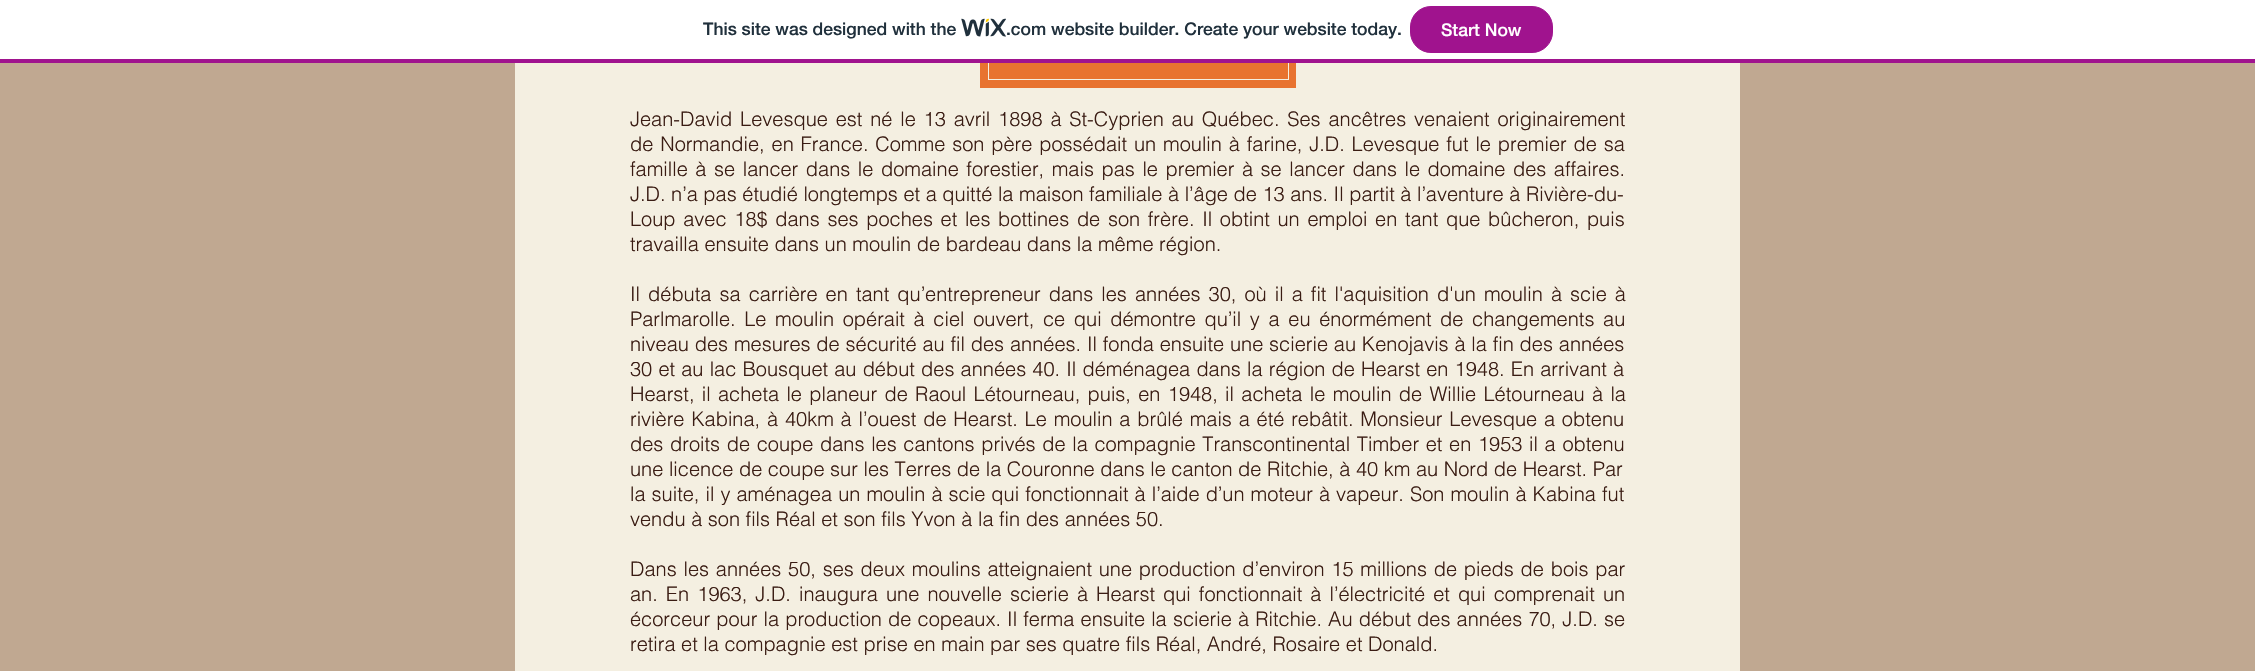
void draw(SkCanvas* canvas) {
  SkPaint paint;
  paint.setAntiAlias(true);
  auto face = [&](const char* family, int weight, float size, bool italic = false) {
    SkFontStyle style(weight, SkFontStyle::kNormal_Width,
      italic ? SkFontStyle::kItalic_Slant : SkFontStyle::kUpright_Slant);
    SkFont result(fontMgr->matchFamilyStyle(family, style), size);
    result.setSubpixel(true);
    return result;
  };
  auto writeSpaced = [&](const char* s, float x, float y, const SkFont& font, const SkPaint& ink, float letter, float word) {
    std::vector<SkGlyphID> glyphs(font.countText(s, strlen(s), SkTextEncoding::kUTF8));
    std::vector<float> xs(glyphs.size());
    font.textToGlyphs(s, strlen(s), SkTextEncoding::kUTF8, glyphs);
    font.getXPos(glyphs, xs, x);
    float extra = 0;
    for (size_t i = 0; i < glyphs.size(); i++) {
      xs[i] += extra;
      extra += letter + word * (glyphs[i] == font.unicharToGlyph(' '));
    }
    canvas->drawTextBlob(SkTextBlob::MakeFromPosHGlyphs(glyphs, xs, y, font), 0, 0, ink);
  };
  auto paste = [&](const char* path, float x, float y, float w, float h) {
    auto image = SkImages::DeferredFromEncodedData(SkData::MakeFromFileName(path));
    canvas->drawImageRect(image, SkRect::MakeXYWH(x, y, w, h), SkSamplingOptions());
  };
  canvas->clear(0xffc0a891);
  paint.setColor(0xfff4efe1);
  canvas->drawRect(SkRect::MakeXYWH(515, 63, 1225, 608), paint);
  paint.setColor(0xffe87330);
  canvas->drawRect(SkRect::MakeXYWH(980, 63, 316, 25), paint);
  paint.setStroke(true);
  paint.setStrokeWidth(1);
  paint.setColor(0xfff4efe1);
  canvas->drawRect(SkRect::MakeXYWH(988.5f, -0.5f, 300, 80), paint);
  paint.setStroke(false);
  paint.setColor(0xffffffff);
  canvas->drawRect(SkRect::MakeXYWH(0, 0, 2255, 59), paint);
  paint.setColor(0xffa0138e);
  canvas->drawRect(SkRect::MakeXYWH(0, 59, 2255, 4), paint);
  paste("img/1.png", 961, 18, 45, 19);
  canvas->drawRoundRect(SkRect::MakeXYWH(1410.5f, 6.5f, 142, 46), 20.5f, 20.5f, paint);
  paint.setStroke(true);
  canvas->drawRoundRect(SkRect::MakeXYWH(1410.5f, 6.5f, 142, 46), 20.5f, 20.5f, paint);
  auto f0 = face("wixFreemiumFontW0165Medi", 500, 17.5f);
  paint.setStroke(false);
  paint.setColor(0xff20303c);
  canvas->drawString("This site was designed with the", 703, 35, f0, paint);
  canvas->drawString(".com website builder. Create your website today.", 1006, 35, f0, paint);
  paint.setColor(0xffffffff);
  canvas->drawString("Start Now", 1441, 36, f0, paint);
  auto f1 = face("helvetica", 300, 20);
  paint.setColor(0xff3a1c13);
  writeSpaced("Jean-David Levesque est né le 13 avril 1898 à St-Cyprien au Québec. Ses ancêtres venaient originairement", 630, 126, f1, paint, 0, 2.25f);
  writeSpaced("de Normandie, en France. Comme son père possédait un moulin à farine, J.D. Levesque fut le premier de sa", 630, 151, f1, paint, 0, 1.3f);
  writeSpaced("famille à se lancer dans le domaine forestier, mais pas le premier à se lancer dans le domaine des affaires.", 630, 176, f1, paint, 0, 2);
  canvas->drawString("J.D. n’a pas étudié longtemps et a quitté la maison familiale à l’âge de 13 ans. Il partit à l’aventure à Rivière-du-", 630, 201, f1, paint);
  writeSpaced("Loup avec 18$ dans ses poches et les bottines de son frère. Il obtint un emploi en tant que bûcheron, puis", 630, 226, f1, paint, 0, 2.1f);
  canvas->drawString("travailla ensuite dans un moulin de bardeau dans la même région.", 630, 251, f1, paint);
  writeSpaced("Il débuta sa carrière en tant qu’entrepreneur dans les années 30, où il a fit l'aquisition d'un moulin à scie à", 630, 301, f1, paint, 0, 2.5f);
  writeSpaced("Parlmarolle. Le moulin opérait à ciel ouvert, ce qui démontre qu’il y a eu énormément de changements au", 630, 326, f1, paint, 0, 3.1f);
  writeSpaced("niveau des mesures de sécurité au fil des années. Il fonda ensuite une scierie au Kenojavis à la fin des années", 630, 351, f1, paint, 0, 0.25f);
  writeSpaced("30 et au lac Bousquet au début des années 40. Il déménagea dans la région de Hearst en 1948. En arrivant à", 630, 376, f1, paint, 0, 0.6f);
  writeSpaced("Hearst, il acheta le planeur de Raoul Létourneau, puis, en 1948, il acheta le moulin de Willie Létourneau à la", 630, 401, f1, paint, 0, 1.75f);
  writeSpaced("rivière Kabina, à 40km à l’ouest de Hearst. Le moulin a brûlé mais a été rebâtit. Monsieur Levesque a obtenu", 630, 426, f1, paint, 0, 1.25f);
  writeSpaced("des droits de coupe dans les cantons privés de la compagnie Transcontinental Timber et en 1953 il a obtenu", 630, 451, f1, paint, 0, 1.1f);
  canvas->drawString("une licence de coupe sur les Terres de la Couronne dans le canton de Ritchie, à 40 km au Nord de Hearst. Par", 630, 476, f1, paint);
  writeSpaced("la suite, il y aménagea un moulin à scie qui fonctionnait à l’aide d’un moteur à vapeur. Son moulin à Kabina fut", 630, 501, f1, paint, 0, 0.5f);
  canvas->drawString("vendu à son fils Réal et son fils Yvon à la fin des années 50.", 630, 526, f1, paint);
  writeSpaced("Dans les années 50, ses deux moulins atteignaient une production d’environ 15 millions de pieds de bois par", 630, 576, f1, paint, 0, 1.2f);
  writeSpaced("an. En 1963, J.D. inaugura une nouvelle scierie à Hearst qui fonctionnait à l’électricité et qui comprenait un", 630, 601, f1, paint, 0, 2.5f);
  writeSpaced("écorceur pour la production de copeaux. Il ferma ensuite la scierie à Ritchie. Au début des années 70, J.D. se", 630, 626, f1, paint, 0, 0.6f);
  canvas->drawString("retira et la compagnie est prise en main par ses quatre fils Réal, André, Rosaire et Donald.", 630, 651, f1, paint);
}
